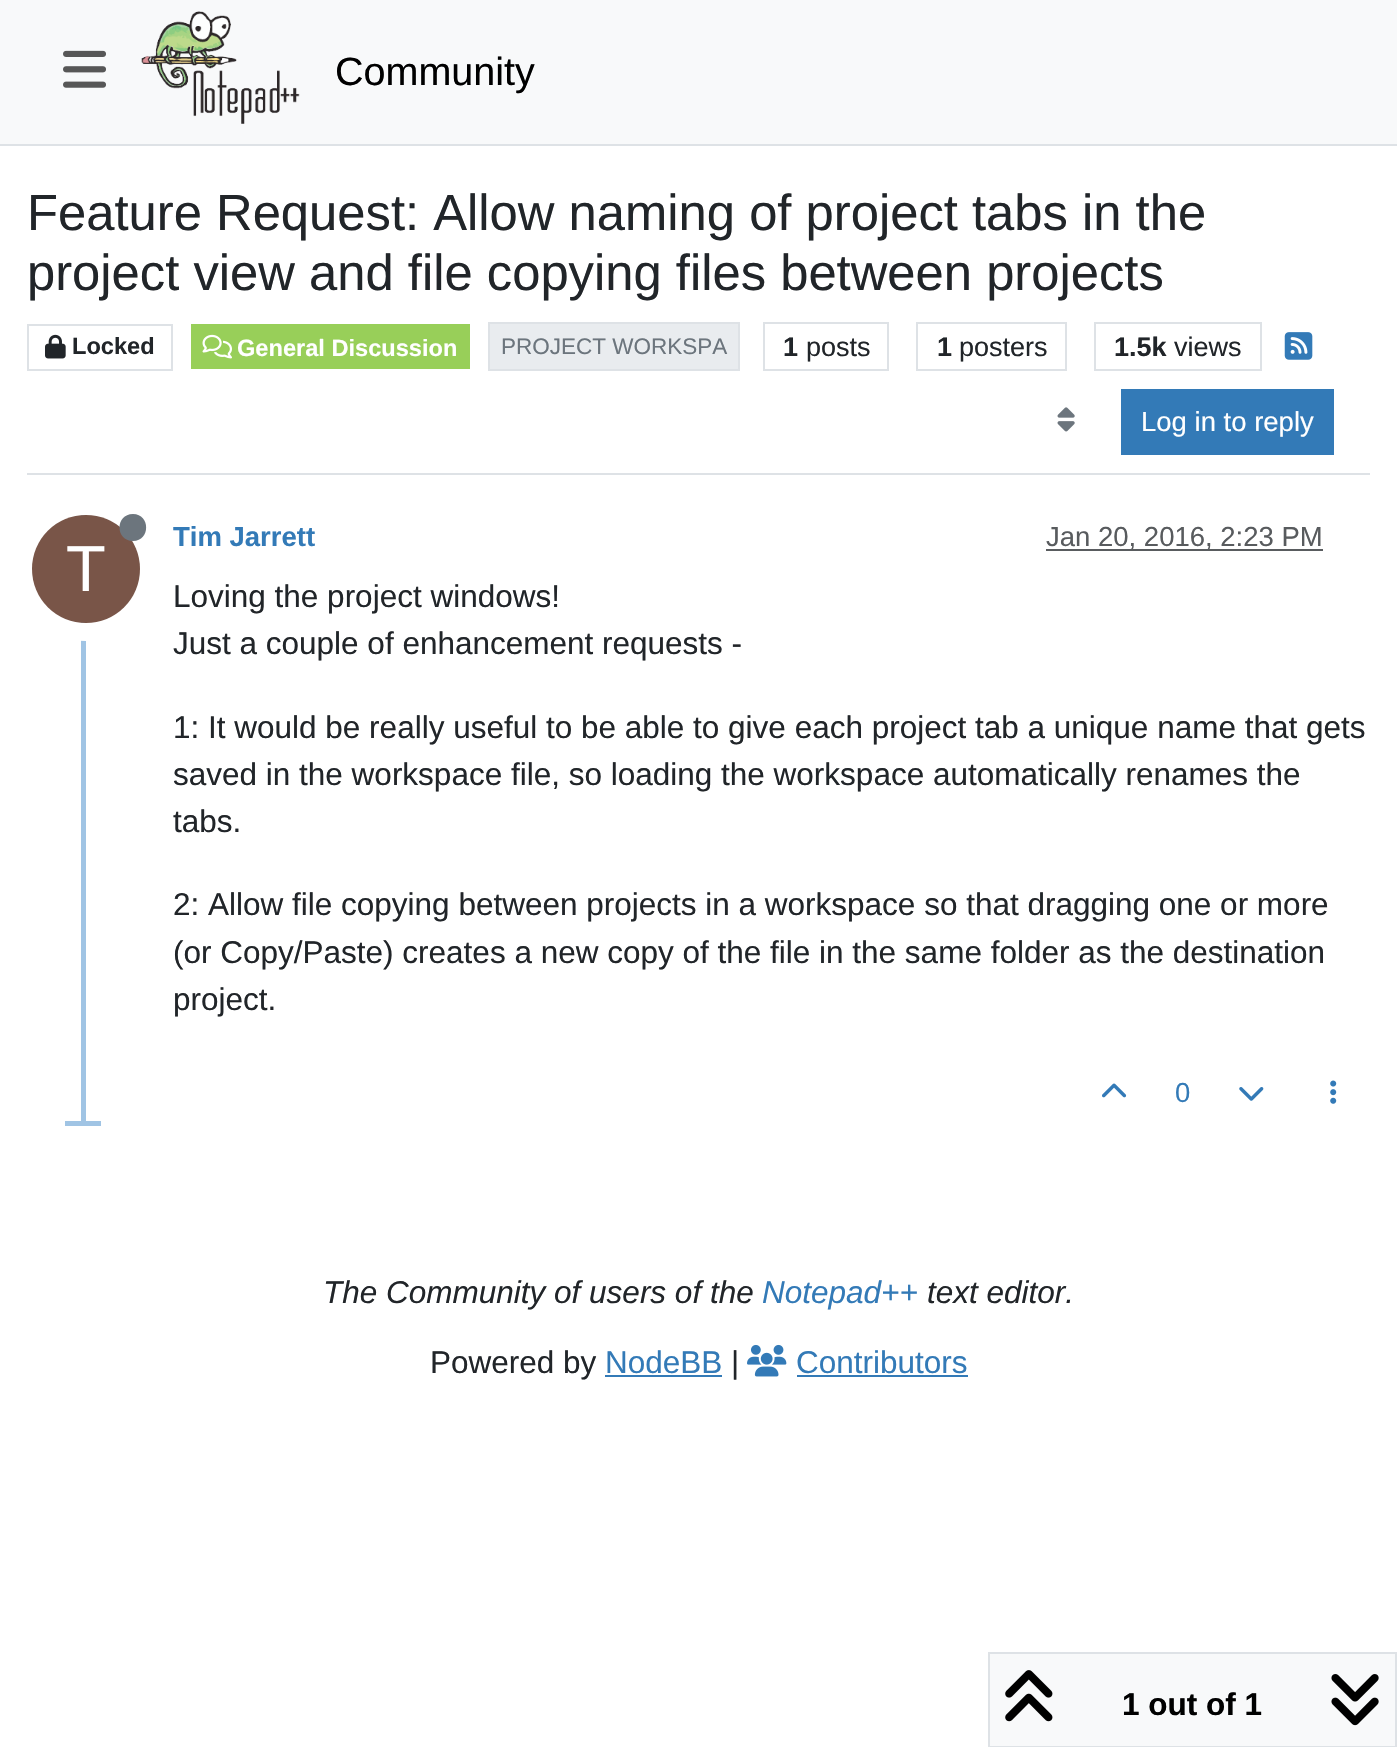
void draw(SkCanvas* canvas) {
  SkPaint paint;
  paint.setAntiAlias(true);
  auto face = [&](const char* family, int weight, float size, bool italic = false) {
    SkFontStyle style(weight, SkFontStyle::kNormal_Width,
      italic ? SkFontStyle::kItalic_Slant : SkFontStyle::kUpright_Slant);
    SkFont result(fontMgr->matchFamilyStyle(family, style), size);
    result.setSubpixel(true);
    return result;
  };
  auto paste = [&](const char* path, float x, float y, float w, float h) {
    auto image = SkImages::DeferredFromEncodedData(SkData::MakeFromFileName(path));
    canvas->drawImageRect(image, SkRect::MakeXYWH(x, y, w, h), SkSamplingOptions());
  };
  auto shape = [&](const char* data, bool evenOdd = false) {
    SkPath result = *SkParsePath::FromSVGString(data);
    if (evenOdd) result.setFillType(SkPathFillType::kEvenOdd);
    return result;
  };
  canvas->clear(0xffffffff);
  paint.setColor(0xfff8f9fa);
  canvas->drawRect(SkRect::MakeXYWH(0, 0, 1397, 144), paint);
  paint.setColor(0xffdee2e6);
  canvas->drawRect(SkRect::MakeXYWH(0, 144, 1397, 2), paint);
  paste("img/1.png", 63, 50, 43, 38);
  paste("img/2.png", 141, 11, 159, 113);
  canvas->drawRect(SkRect::MakeXYWH(27, 473, 1343, 2), paint);
  paint.setStroke(true);
  paint.setStrokeWidth(2);
  canvas->drawRect(SkRect::MakeXYWH(28, 325, 144, 45), paint);
  paste("img/3.png", 45, 334, 21, 25);
  paint.setStroke(false);
  paint.setColor(0xff98cf59);
  canvas->drawRect(SkRect::MakeXYWH(191, 324, 279, 45), paint);
  paste("img/4.png", 202, 334, 30, 25);
  paint.setColor(0xffe9ecef);
  canvas->drawRect(SkRect::MakeXYWH(489, 323, 250, 47), paint);
  paint.setStroke(true);
  paint.setColor(0xffdee2e6);
  canvas->drawRect(SkRect::MakeXYWH(489, 323, 250, 47), paint);
  canvas->drawRect(SkRect::MakeXYWH(764, 323, 124, 47), paint);
  canvas->drawRect(SkRect::MakeXYWH(917, 323, 149, 47), paint);
  canvas->drawRect(SkRect::MakeXYWH(1095, 323, 166, 47), paint);
  paste("img/5.png", 1284, 332, 29, 28);
  paste("img/6.png", 1057, 407, 18, 25);
  paint.setStroke(false);
  {
    const struct { float x, y, w, h; SkColor color; } items[] = {
      {1121, 389, 213, 66, 0xff337ab7},
      {81, 511, 5, 614, 0xffa0c4e4},
      {1046, 549, 277, 2, 0xff595c5f},
    };
    for (auto [x, y, w, h, color] : items) {
      paint.setColor(color);
      canvas->drawRect(SkRect::MakeXYWH(x, y, w, h), paint);
    }
  }
  paint.setStroke(true);
  paint.setStrokeWidth(18);
  paint.setColor(0xffffffff);
  canvas->drawCircle(86, 569, 63, paint);
  paint.setStroke(false);
  paint.setColor(0xff795548);
  canvas->drawCircle(86, 569, 54, paint);
  paint.setColor(0xff6c757d);
  canvas->drawPath(shape("M133 541C150.5 541 150.5 514 133 514C115 514 115 541 133 541Z"), paint);
  paste("img/7.png", 1102, 1083, 25, 15);
  paste("img/8.png", 1239, 1087, 25, 14);
  paste("img/9.png", 1330, 1080, 7, 24);
  paint.setColor(0xffa0c4e4);
  canvas->drawRect(SkRect::MakeXYWH(65, 1121, 36, 5), paint);
  paint.setColor(0xfff8f9fa);
  canvas->drawRect(SkRect::MakeXYWH(989, 1653, 407, 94), paint);
  paint.setStroke(true);
  paint.setStrokeWidth(2);
  paint.setColor(0xffdee2e6);
  canvas->drawRect(SkRect::MakeXYWH(989, 1653, 407, 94), paint);
  paste("img/10.png", 1005, 1670, 48, 52);
  paste("img/11.png", 1331, 1674, 48, 52);
  paint.setStroke(false);
  paint.setColor(0xff337ab7);
  canvas->drawRect(SkRect::MakeXYWH(605, 1375, 117, 2), paint);
  paste("img/12.png", 747, 1344, 40, 33);
  canvas->drawRect(SkRect::MakeXYWH(797, 1375, 171, 2), paint);
  auto f0 = face("Liberation Sans", 400, 39.5f);
  paint.setColor(0xff000000);
  canvas->drawString("Community", 335, 85, f0, paint);
  auto f1 = face("Liberation Sans", 400, 50.75f);
  paint.setColor(0xff212529);
  canvas->drawString("Feature Request: Allow naming of project tabs in the", 27, 230, f1, paint);
  canvas->drawString("project view and file copying files between projects", 27, 290, f1, paint);
  auto f2 = face("Liberation Sans", 700, 23.6f);
  canvas->drawString("Locked", 72, 354, f2, paint);
  paint.setColor(0xffffffff);
  canvas->drawString("General Discussion", 237, 356, f2, paint);
  auto f3 = face("Liberation Sans", 400, 22.5f);
  paint.setColor(0xff6c757d);
  canvas->drawString("PROJECT WORKSPA", 501, 354, f3, paint);
  auto f4 = face("Liberation Sans", 700, 27);
  paint.setColor(0xff212529);
  canvas->drawString("1", 783, 356, f4, paint);
  auto f5 = face("Liberation Sans", 400, 27);
  canvas->drawString("posts", 806, 356, f5, paint);
  canvas->drawString("1", 937, 356, f4, paint);
  canvas->drawString("posters", 959, 356, f5, paint);
  canvas->drawString("1.5k", 1114, 356, f4, paint);
  canvas->drawString("views", 1174, 356, f5, paint);
  auto f6 = face("Liberation Sans", 400, 27.5f);
  paint.setColor(0xffffffff);
  canvas->drawString("Log in to reply", 1141, 431, f6, paint);
  auto f7 = face("Liberation Sans", 700, 27.5f);
  paint.setColor(0xff337ab7);
  canvas->drawString("Tim Jarrett", 173, 546, f7, paint);
  paint.setColor(0xff585b5e);
  canvas->drawString("Jan 20, 2016, 2:23 PM", 1046, 546, f6, paint);
  auto f8 = face("Liberation Sans", 400, 65);
  paint.setColor(0xffffffff);
  canvas->drawString("T", 66, 591, f8, paint);
  auto f9 = face("Liberation Sans", 400, 31.5f);
  paint.setColor(0xff212529);
  {
    const struct { const char* s; float x, y; } items[] = {
      {"Loving the project windows!", 173, 607},
      {"Just a couple of enhancement requests -", 173, 654},
      {"1: It would be really useful to be able to give each project tab a unique name that gets", 173, 738},
      {"saved in the workspace file, so loading the workspace automatically renames the", 173, 785},
      {"tabs.", 173, 832},
      {"2: Allow file copying between projects in a workspace so that dragging one or more", 173, 915},
      {"(or Copy/Paste) creates a new copy of the file in the same folder as the destination", 173, 963},
      {"project.", 173, 1010},
    };
    for (auto [s, x, y] : items) {
      canvas->drawString(s, x, y, f9, paint);
    }
  }
  paint.setColor(0xff337ab7);
  canvas->drawString("0", 1175, 1102, f6, paint);
  auto f10 = face("Liberation Sans", 700, 31.5f);
  paint.setColor(0xff000000);
  canvas->drawString("1 out of 1", 1122, 1715, f10, paint);
  auto f11 = face("Liberation Sans", 400, 31.5f, true);
  paint.setColor(0xff212529);
  canvas->drawString("The Community of users of the", 323, 1303, f11, paint);
  paint.setColor(0xff337ab7);
  canvas->drawString("Notepad++", 762, 1303, f11, paint);
  paint.setColor(0xff212529);
  canvas->drawString("text editor.", 927, 1303, f11, paint);
  canvas->drawString("Powered by", 430, 1373, f9, paint);
  paint.setColor(0xff337ab7);
  canvas->drawString("NodeBB", 605, 1373, f9, paint);
  paint.setColor(0xff212529);
  canvas->drawString("|", 731, 1373, f9, paint);
  paint.setColor(0xff337ab7);
  canvas->drawString("Contributors", 796, 1373, f9, paint);
}
